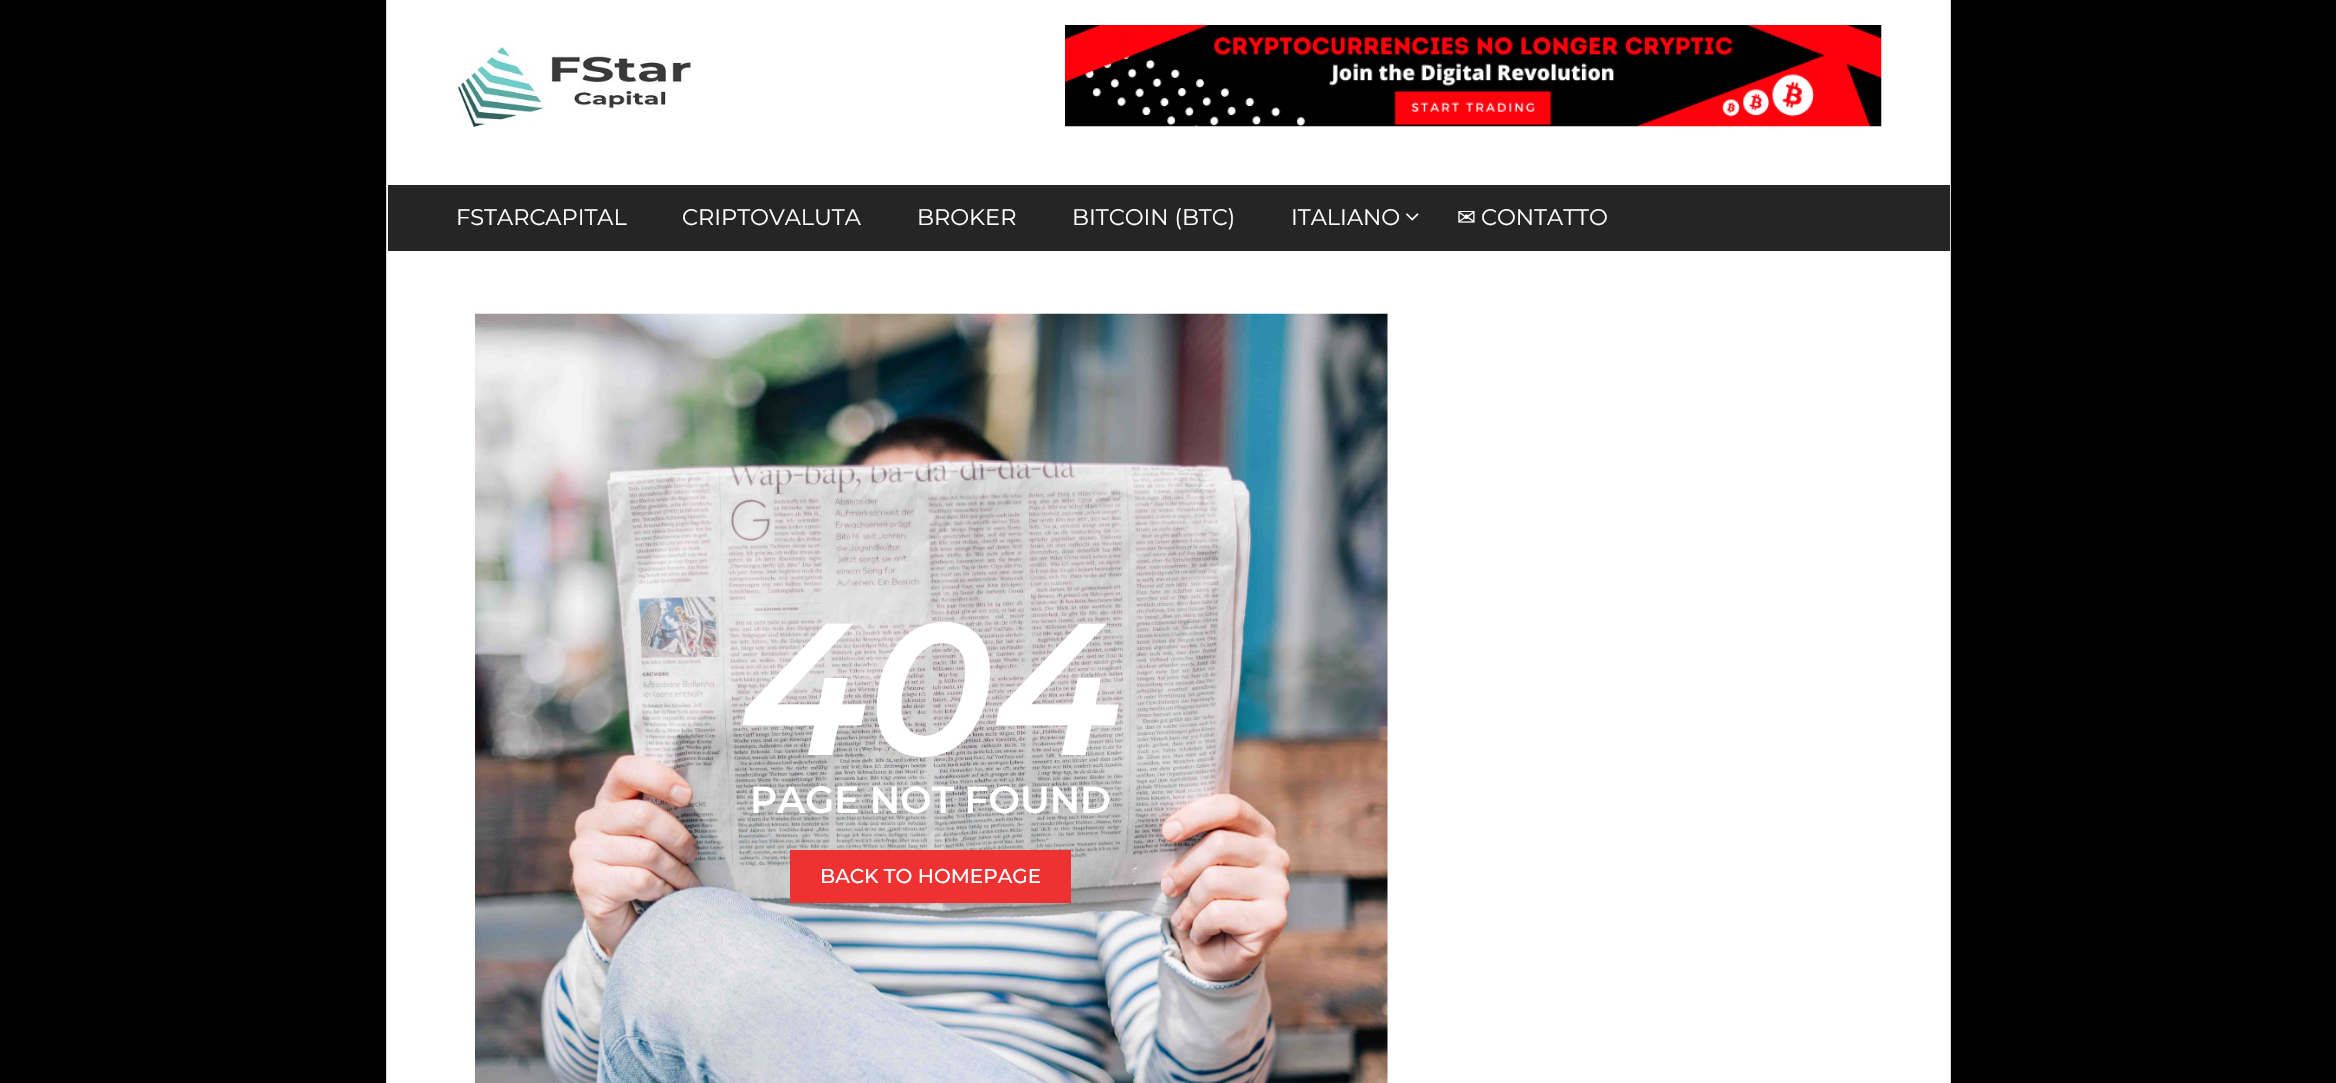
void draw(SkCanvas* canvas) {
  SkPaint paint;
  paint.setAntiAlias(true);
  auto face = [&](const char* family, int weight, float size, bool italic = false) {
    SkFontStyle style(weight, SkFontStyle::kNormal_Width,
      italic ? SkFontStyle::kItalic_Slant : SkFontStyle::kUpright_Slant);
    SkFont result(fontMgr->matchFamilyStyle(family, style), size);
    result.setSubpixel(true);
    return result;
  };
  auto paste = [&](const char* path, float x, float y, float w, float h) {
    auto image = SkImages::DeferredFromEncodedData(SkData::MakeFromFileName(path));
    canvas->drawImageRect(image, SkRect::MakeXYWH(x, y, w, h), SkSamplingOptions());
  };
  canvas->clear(0xff000000);
  {
    const struct { float x, y, w, h; SkColor color; } items[] = {
      {387, 0, 1563, 1083, 0xffffffff},
      {1950, 0, 1, 1083, 0xffd7d7d7},
      {386, 0, 1, 1083, 0xffd7d7d7},
    };
    for (auto [x, y, w, h, color] : items) {
      paint.setColor(color);
      canvas->drawRect(SkRect::MakeXYWH(x, y, w, h), paint);
    }
  }
  paste("img/1.png", 456, 47, 235, 81);
  paste("img/2.png", 1065, 25, 817, 102);
  paint.setColor(0xff252525);
  canvas->drawRect(SkRect::MakeXYWH(388, 185, 1562, 66), paint);
  paste("img/3.png", 1406, 213, 13, 8);
  paste("img/4.png", 475, 313, 913, 770);
  paint.setColor(0xffee3232);
  canvas->drawRect(SkRect::MakeXYWH(790, 850, 281, 53), paint);
  auto f0 = face("Montserrat", 400, 22.5f);
  paint.setColor(0xffffffff);
  {
    const struct { const char* s; float x, y; } items[] = {
      {"FSTARCAPITAL", 456, 225},
      {"CRIPTOVALUTA", 682, 225},
      {"BROKER", 917, 225},
      {"BITCOIN (BTC)", 1072, 225},
      {"ITALIANO", 1291, 225},
    };
    for (auto [s, x, y] : items) {
      canvas->drawString(s, x, y, f0, paint);
    }
  }
  auto f1 = face("DejaVu Sans", 400, 22.5f);
  canvas->drawString("✉", 1457, 225, f1, paint);
  canvas->drawString("CONTATTO", 1481, 225, f0, paint);
  auto f2 = face("Montserrat", 600, 187.5f, true);
  canvas->drawString("404", 740, 755, f2, paint);
  auto f3 = face("Montserrat", 600, 37.5f);
  canvas->drawString("PAGE NOT FOUND", 750, 813, f3, paint);
  auto f4 = face("Montserrat", 500, 20);
  canvas->drawString("BACK TO HOMEPAGE", 820, 883, f4, paint);
}
